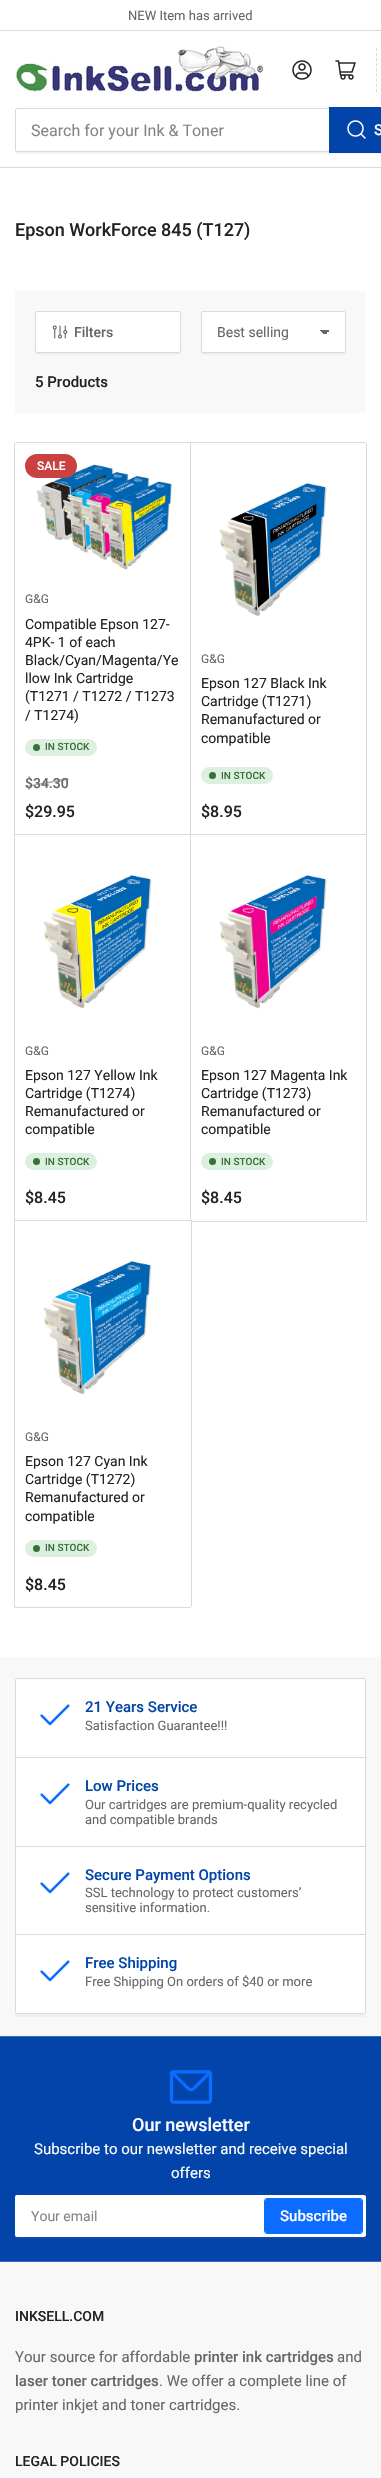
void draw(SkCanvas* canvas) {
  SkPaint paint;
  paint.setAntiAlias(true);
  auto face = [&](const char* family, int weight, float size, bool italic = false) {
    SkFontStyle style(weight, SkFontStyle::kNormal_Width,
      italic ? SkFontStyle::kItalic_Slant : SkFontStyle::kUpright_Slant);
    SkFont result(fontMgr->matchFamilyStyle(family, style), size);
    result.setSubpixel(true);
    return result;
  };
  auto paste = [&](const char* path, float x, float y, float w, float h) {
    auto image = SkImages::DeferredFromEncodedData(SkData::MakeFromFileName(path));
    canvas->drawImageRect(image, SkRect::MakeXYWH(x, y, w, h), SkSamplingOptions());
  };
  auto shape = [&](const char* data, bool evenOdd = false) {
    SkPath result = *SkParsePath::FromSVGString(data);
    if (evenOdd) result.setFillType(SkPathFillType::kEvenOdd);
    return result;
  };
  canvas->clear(0xffffffff);
  paint.setColor(0xffdadada);
  canvas->drawRect(SkRect::MakeXYWH(0, 30, 381, 1), paint);
  canvas->drawRect(SkRect::MakeXYWH(0, 167, 381, 1), paint);
  paste("img/1.png", 15, 46, 249, 47);
  paste("img/2.png", 292, 60, 20, 20);
  paste("img/3.png", 335, 60, 21, 20);
  paint.setStroke(true);
  paint.setStrokeWidth(1);
  paint.setPathEffect(SkDashPathEffect::Make({{3, 2.12f}}, 0));
  canvas->drawPath(shape("M376.5 48V92"), paint);
  paint.setPathEffect(nullptr);
  paint.setStroke(false);
  paint.setColor(0xfff4f4f4);
  canvas->drawPath(shape("M15 150V153L17 154H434C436 154 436 152 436 150C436 151 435 152 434 152H17C16 152 15 151 15 150Z"), paint);
  paint.setStroke(true);
  paint.setColor(0xffdadada);
  canvas->drawRoundRect(SkRect::MakeXYWH(15.5f, 108.5f, 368, 43), 1.5f, 1.5f, paint);
  paint.setColor(0xff0244a9);
  canvas->drawRect(SkRect::MakeXYWH(329.5f, 107.5f, 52, 45), paint);
  paint.setStroke(false);
  canvas->drawRect(SkRect::MakeXYWH(330, 108, 51, 44), paint);
  paste("img/4.png", 347, 120, 19, 19);
  paint.setColor(0xfff8f8f8);
  canvas->drawRoundRect(SkRect::MakeXYWH(15, 291, 351, 122), 2, 2, paint);
  paint.setColor(0xffefefef);
  canvas->drawPath(shape("M35 351C35 353 35 355 37 355H180C181 354 181 352 181 351C181 352 180 353 179 353H37C36 353 35 352 35 351Z"), paint);
  paint.setColor(0xffffffff);
  canvas->drawRoundRect(SkRect::MakeXYWH(35.5f, 311.5f, 145, 41), 1.5f, 1.5f, paint);
  paint.setStroke(true);
  paint.setColor(0xffdadada);
  canvas->drawRoundRect(SkRect::MakeXYWH(35.5f, 311.5f, 145, 41), 1.5f, 1.5f, paint);
  paste("img/5.png", 52, 325, 16, 14);
  paint.setStroke(false);
  paint.setColor(0xffefefef);
  canvas->drawPath(shape("M201 351C201 352 201 354 202 355H344C346 355 346 353 346 351C346 352 345 353 344 353H203C202 353 201 352 201 351Z"), paint);
  paint.setColor(0xffffffff);
  canvas->drawRoundRect(SkRect::MakeXYWH(202, 312, 143, 40), 1, 1, paint);
  {
    const SkColor colors[] = {0xff676767, 0xffffffff};
    const float stops[] = {0.5f, 0.5f};
    const SkPoint ends[] = {{325, 330}, {330, 335}};
    paint.setShader(SkGradientShader::MakeLinear(ends, colors, stops, 2, SkTileMode::kClamp));
    paint.setAlpha(255);
  }
  canvas->drawRect(SkRect::MakeXYWH(325, 330, 5, 4), paint);
  {
    const SkColor colors[] = {0xffffffff, 0xff676767};
    const float stops[] = {0.5f, 0.5f};
    const SkPoint ends[] = {{320, 335}, {325, 330}};
    paint.setShader(SkGradientShader::MakeLinear(ends, colors, stops, 2, SkTileMode::kClamp));
    paint.setAlpha(255);
  }
  canvas->drawRect(SkRect::MakeXYWH(320, 330, 5, 4), paint);
  paint.setStroke(true);
  paint.setShader(nullptr);
  paint.setColor(0xffdadada);
  canvas->drawRoundRect(SkRect::MakeXYWH(201.5f, 311.5f, 144, 41), 1.5f, 1.5f, paint);
  canvas->drawPath(shape("M17 442.5H191.5V835.5H14.5V445C14.5 443.5 15.5 442.5 17 442.5Z"), paint);
  paint.setStroke(false);
  paint.setColor(0xffffffff);
  canvas->drawPath(shape("M17 443H191V835H15V445C15 444 16 443 17 443Z"), paint);
  paste("img/6.png", 36, 464, 136, 106);
  paint.setColor(0xffca4141);
  canvas->drawRoundRect(SkRect::MakeXYWH(26, 455, 50, 22), 11, 11, paint);
  paint.setStroke(true);
  paint.setStrokeWidth(2);
  canvas->drawRoundRect(SkRect::MakeXYWH(26, 455, 50, 22), 11, 11, paint);
  paint.setStroke(false);
  paint.setColor(0xffddf0df);
  canvas->drawRoundRect(SkRect::MakeXYWH(25, 739, 72, 17), 8.5f, 8.5f, paint);
  paint.setColor(0xff337239);
  canvas->drawCircle(36.5f, 747.5f, 3.5f, paint);
  paint.setStroke(true);
  paint.setStrokeWidth(1);
  paint.setColor(0xffdadada);
  canvas->drawPath(shape("M190.5 442.5H364C365.5 442.5 366.5 443.5 366.5 445V835.5H190.5Z"), paint);
  paint.setStroke(false);
  paint.setColor(0xffffffff);
  canvas->drawPath(shape("M191 443H364C365 443 366 444 366 445V835H191Z"), paint);
  paste("img/7.png", 219, 483, 108, 134);
  paint.setColor(0xffddf0df);
  canvas->drawRoundRect(SkRect::MakeXYWH(201, 767, 72, 17), 8.5f, 8.5f, paint);
  paint.setColor(0xff337239);
  canvas->drawCircle(212.5f, 775.5f, 3.5f, paint);
  paint.setStroke(true);
  paint.setColor(0xffdadada);
  canvas->drawRect(SkRect::MakeXYWH(14.5f, 834.5f, 177, 387), paint);
  paint.setStroke(false);
  paint.setColor(0xffffffff);
  canvas->drawRect(SkRect::MakeXYWH(15, 835, 176, 1), paint);
  paste("img/8.png", 43, 875, 109, 134);
  paint.setColor(0xffddf0df);
  canvas->drawRoundRect(SkRect::MakeXYWH(25, 1153, 72, 17), 8.5f, 8.5f, paint);
  paint.setColor(0xff337239);
  canvas->drawCircle(36.5f, 1161.5f, 3.5f, paint);
  paint.setStroke(true);
  paint.setColor(0xffdadada);
  canvas->drawPath(shape("M190.5 834.5H366.5V1221.5H193C191.5 1221.5 190.5 1220.5 190.5 1219Z"), paint);
  paint.setStroke(false);
  paint.setColor(0xffffffff);
  canvas->drawPath(shape("M191 835H366V1221H193C192 1221 191 1220 191 1219Z"), paint);
  paste("img/9.png", 219, 875, 108, 134);
  paint.setColor(0xffddf0df);
  canvas->drawRoundRect(SkRect::MakeXYWH(201, 1153, 72, 17), 8.5f, 8.5f, paint);
  paint.setColor(0xff337239);
  canvas->drawCircle(212.5f, 1161.5f, 3.5f, paint);
  paint.setStroke(true);
  paint.setColor(0xffdadada);
  canvas->drawPath(shape("M14.5 1220.5H191.5V1605C191.5 1606.5 190.5 1607.5 189 1607.5H14.5Z"), paint);
  paint.setStroke(false);
  paint.setColor(0xffffffff);
  canvas->drawPath(shape("M15 1221H191V1605C191 1606 190 1607 189 1607H15Z"), paint);
  paste("img/10.png", 43, 1261, 109, 134);
  paint.setColor(0xffddf0df);
  canvas->drawRoundRect(SkRect::MakeXYWH(25, 1540, 72, 17), 8.5f, 8.5f, paint);
  paint.setColor(0xff337239);
  canvas->drawCircle(36.5f, 1548.5f, 3.5f, paint);
  paint.setColor(0xfff8f8f8);
  canvas->drawRect(SkRect::MakeXYWH(0, 1657, 381, 379), paint);
  paint.setColor(0xffffffff);
  canvas->drawPath(shape("M17 1678.5H364C365 1678.5 365.5 1679 365.5 1680V1757.5H15.5V1680C15.5 1679 16 1678.5 17 1678.5Z"), paint);
  paint.setStroke(true);
  paint.setColor(0xffdadada);
  canvas->drawPath(shape("M17 1678.5H364C365 1678.5 365.5 1679 365.5 1680V1757.5H15.5V1680C15.5 1679 16 1678.5 17 1678.5Z"), paint);
  paste("img/11.png", 40, 1704, 30, 22);
  paint.setStroke(false);
  paint.setColor(0xffffffff);
  canvas->drawRect(SkRect::MakeXYWH(15.5f, 1757.5f, 350, 89), paint);
  paint.setStroke(true);
  paint.setColor(0xffdadada);
  canvas->drawRect(SkRect::MakeXYWH(15.5f, 1757.5f, 350, 89), paint);
  paste("img/11.png", 40, 1783, 30, 22);
  paint.setStroke(false);
  paint.setColor(0xffffffff);
  canvas->drawRect(SkRect::MakeXYWH(15.5f, 1846.5f, 350, 88), paint);
  paint.setStroke(true);
  paint.setColor(0xffdadada);
  canvas->drawRect(SkRect::MakeXYWH(15.5f, 1846.5f, 350, 88), paint);
  paste("img/11.png", 40, 1872, 30, 22);
  paint.setStroke(false);
  paint.setColor(0xffefefef);
  canvas->drawPath(shape("M15 2012V2015C15 2016 16 2017 17 2017H364C365 2017 366 2016 366 2015V2012C366 2013 365 2014 364 2014H17C16 2014 15 2013 15 2012Z"), paint);
  paint.setColor(0xffffffff);
  canvas->drawPath(shape("M15.5 1934.5H365.5V2012C365.5 2013 365 2013.5 364 2013.5H17C16 2013.5 15.5 2013 15.5 2012Z"), paint);
  paint.setStroke(true);
  paint.setColor(0xffdadada);
  canvas->drawPath(shape("M15.5 1934.5H365.5V2012C365.5 2013 365 2013.5 364 2013.5H17C16 2013.5 15.5 2013 15.5 2012Z"), paint);
  paste("img/11.png", 40, 1960, 30, 22);
  paint.setStroke(false);
  {
    const struct { float x, y, w, h; SkColor color; } items[] = {
      {0, 2037, 381, 224, 0xff0244a9},
      {0, 2036, 381, 1, 0xff3569ba},
      {0, 2261, 381, 1, 0xff3569ba},
    };
    for (auto [x, y, w, h, color] : items) {
      paint.setColor(color);
      canvas->drawRect(SkRect::MakeXYWH(x, y, w, h), paint);
    }
  }
  paste("img/12.png", 169, 2070, 44, 34);
  paint.setColor(0xff0d4cab);
  canvas->drawPath(shape("M15 2235V2237C15 2238 16 2239 17 2239H364C365 2239 366 2238 366 2237V2235C366 2236 365 2237 364 2237H17C16 2237 15 2236 15 2235Z"), paint);
  paint.setColor(0xffffffff);
  canvas->drawRoundRect(SkRect::MakeXYWH(15, 2195, 351, 42), 2, 2, paint);
  paint.setStroke(true);
  paint.setColor(0x33ffffff);
  canvas->drawRoundRect(SkRect::MakeXYWH(15.5f, 2195.5f, 350, 41), 1.5f, 1.5f, paint);
  paint.setColor(0xff0b6cff);
  canvas->drawRoundRect(SkRect::MakeXYWH(264.5f, 2198.5f, 98, 35), 2.5f, 2.5f, paint);
  paint.setStroke(false);
  canvas->drawRoundRect(SkRect::MakeXYWH(265, 2199, 97, 34), 2, 2, paint);
  paint.setColor(0xfff8f8f8);
  canvas->drawRect(SkRect::MakeXYWH(0, 2262, 381, 216), paint);
  auto f0 = face("Roboto", 400, 13);
  paint.setColor(0xff676767);
  canvas->drawString("NEW Item has arrived", 128, 20, f0, paint);
  auto f1 = face("Roboto", 400, 16);
  paint.setColor(0xff858585);
  canvas->drawString("Search for your Ink & Toner", 31, 136, f1, paint);
  auto f2 = face("Roboto", 500, 15);
  paint.setColor(0xffffffff);
  canvas->drawString("S", 374, 135, f2, paint);
  auto f3 = face("Roboto", 500, 18);
  paint.setColor(0xff232323);
  canvas->drawString("Epson WorkForce 845 (T127)", 15, 236, f3, paint);
  auto f4 = face("Roboto", 500, 14);
  paint.setColor(0xff676767);
  canvas->drawString("Filters", 74, 337, f4, paint);
  auto f5 = face("Roboto", 400, 14);
  canvas->drawString("Best selling", 217, 337, f5, paint);
  paint.setColor(0xff232323);
  canvas->drawString("5 Products", 35, 387, f2, paint);
  auto f6 = face("Roboto", 500, 12);
  paint.setColor(0xffffffff);
  canvas->drawString("SALE", 37, 470, f6, paint);
  auto f7 = face("Roboto", 400, 12);
  paint.setColor(0xff676767);
  canvas->drawString("G&G", 25, 603, f7, paint);
  paint.setColor(0xff232323);
  {
    const struct { const char* s; float x, y; } items[] = {
      {"Compatible Epson 127-", 25, 629},
      {"4PK- 1 of each", 25, 647},
      {"Black/Cyan/Magenta/Ye", 25, 665},
      {"llow Ink Cartridge", 25, 683},
      {"(T1271 / T1272 / T1273", 25, 701},
      {"/ T1274)", 25, 720},
    };
    for (auto [s, x, y] : items) {
      canvas->drawString(s, x, y, f5, paint);
    }
  }
  auto f8 = face("Roboto", 500, 10);
  paint.setColor(0xff337239);
  canvas->drawString("IN STOCK", 45, 750, f8, paint);
  paint.setColor(0xff676767);
  canvas->drawString("$34.30", 25, 788, f4, paint);
  paint.setColor(0x80676767);
  canvas->drawPath(shape("M25 786L68 778L69 780L26 787Z"), paint);
  auto f9 = face("Roboto", 500, 16);
  paint.setColor(0xff232323);
  canvas->drawString("$29.95", 25, 817, f9, paint);
  paint.setColor(0xff676767);
  canvas->drawString("G&G", 201, 663, f7, paint);
  paint.setColor(0xff232323);
  {
    const struct { const char* s; float x, y; } items[] = {
      {"Epson 127 Black Ink", 201, 688},
      {"Cartridge (T1271)", 201, 706},
      {"Remanufactured or", 201, 724},
      {"compatible", 201, 743},
    };
    for (auto [s, x, y] : items) {
      canvas->drawString(s, x, y, f5, paint);
    }
  }
  paint.setColor(0xff337239);
  canvas->drawString("IN STOCK", 221, 779, f8, paint);
  paint.setColor(0xff232323);
  canvas->drawString("$8.95", 201, 817, f9, paint);
  paint.setColor(0xff676767);
  canvas->drawString("G&G", 25, 1055, f7, paint);
  paint.setColor(0xff232323);
  {
    const struct { const char* s; float x, y; } items[] = {
      {"Epson 127 Yellow Ink", 25, 1080},
      {"Cartridge (T1274)", 25, 1098},
      {"Remanufactured or", 25, 1116},
      {"compatible", 25, 1134},
    };
    for (auto [s, x, y] : items) {
      canvas->drawString(s, x, y, f5, paint);
    }
  }
  paint.setColor(0xff337239);
  canvas->drawString("IN STOCK", 45, 1165, f8, paint);
  paint.setColor(0xff232323);
  canvas->drawString("$8.45", 25, 1203, f9, paint);
  paint.setColor(0xff676767);
  canvas->drawString("G&G", 201, 1055, f7, paint);
  paint.setColor(0xff232323);
  {
    const struct { const char* s; float x, y; } items[] = {
      {"Epson 127 Magenta Ink", 201, 1080},
      {"Cartridge (T1273)", 201, 1098},
      {"Remanufactured or", 201, 1116},
      {"compatible", 201, 1134},
    };
    for (auto [s, x, y] : items) {
      canvas->drawString(s, x, y, f5, paint);
    }
  }
  paint.setColor(0xff337239);
  canvas->drawString("IN STOCK", 221, 1165, f8, paint);
  paint.setColor(0xff232323);
  canvas->drawString("$8.45", 201, 1203, f9, paint);
  paint.setColor(0xff676767);
  canvas->drawString("G&G", 25, 1441, f7, paint);
  paint.setColor(0xff232323);
  {
    const struct { const char* s; float x, y; } items[] = {
      {"Epson 127 Cyan Ink", 25, 1466},
      {"Cartridge (T1272)", 25, 1484},
      {"Remanufactured or", 25, 1502},
      {"compatible", 25, 1521},
    };
    for (auto [s, x, y] : items) {
      canvas->drawString(s, x, y, f5, paint);
    }
  }
  paint.setColor(0xff337239);
  canvas->drawString("IN STOCK", 45, 1551, f8, paint);
  paint.setColor(0xff232323);
  canvas->drawString("$8.45", 25, 1590, f9, paint);
  paint.setColor(0xff0244a9);
  canvas->drawString("21 Years Service", 85, 1712, f2, paint);
  paint.setColor(0xff676767);
  canvas->drawString("Satisfaction Guarantee!!!", 85, 1730, f0, paint);
  paint.setColor(0xff0244a9);
  canvas->drawString("Low Prices", 85, 1791, f2, paint);
  paint.setColor(0xff676767);
  canvas->drawString("Our cartridges are premium-quality recycled", 85, 1809, f0, paint);
  canvas->drawString("and compatible brands", 85, 1824, f0, paint);
  paint.setColor(0xff0244a9);
  canvas->drawString("Secure Payment Options", 85, 1880, f2, paint);
  paint.setColor(0xff676767);
  canvas->drawString("SSL technology to protect customers’", 85, 1897, f0, paint);
  canvas->drawString("sensitive information.", 85, 1912, f0, paint);
  paint.setColor(0xff0244a9);
  canvas->drawString("Free Shipping", 85, 1968, f2, paint);
  paint.setColor(0xff676767);
  canvas->drawString("Free Shipping On orders of $40 or more", 85, 1986, f0, paint);
  paint.setColor(0xffffffff);
  canvas->drawString("Our newsletter", 132, 2131, f3, paint);
  auto f10 = face("Roboto", 400, 15);
  canvas->drawString("Subscribe to our newsletter and receive special", 34, 2154, f10, paint);
  canvas->drawString("offers", 171, 2178, f10, paint);
  paint.setColor(0xff858585);
  canvas->drawString("Your email", 31, 2221, f5, paint);
  paint.setColor(0xffffffff);
  canvas->drawString("Subscribe", 280, 2221, f2, paint);
  paint.setColor(0xff232323);
  canvas->drawString("INKSELL.COM", 15, 2321, f4, paint);
  paint.setColor(0xff676767);
  canvas->drawString("Your source for affordable", 15, 2362, f10, paint);
  canvas->drawString("printer ink cartridges", 194, 2362, f2, paint);
  canvas->drawString("and", 337, 2362, f10, paint);
  canvas->drawString("laser toner cartridges", 15, 2386, f2, paint);
  canvas->drawString(". We offer a complete line of", 159, 2386, f10, paint);
  canvas->drawString("printer inkjet and toner cartridges.", 15, 2410, f10, paint);
  paint.setColor(0xff232323);
  canvas->drawString("LEGAL POLICIES", 15, 2466, f4, paint);
}
